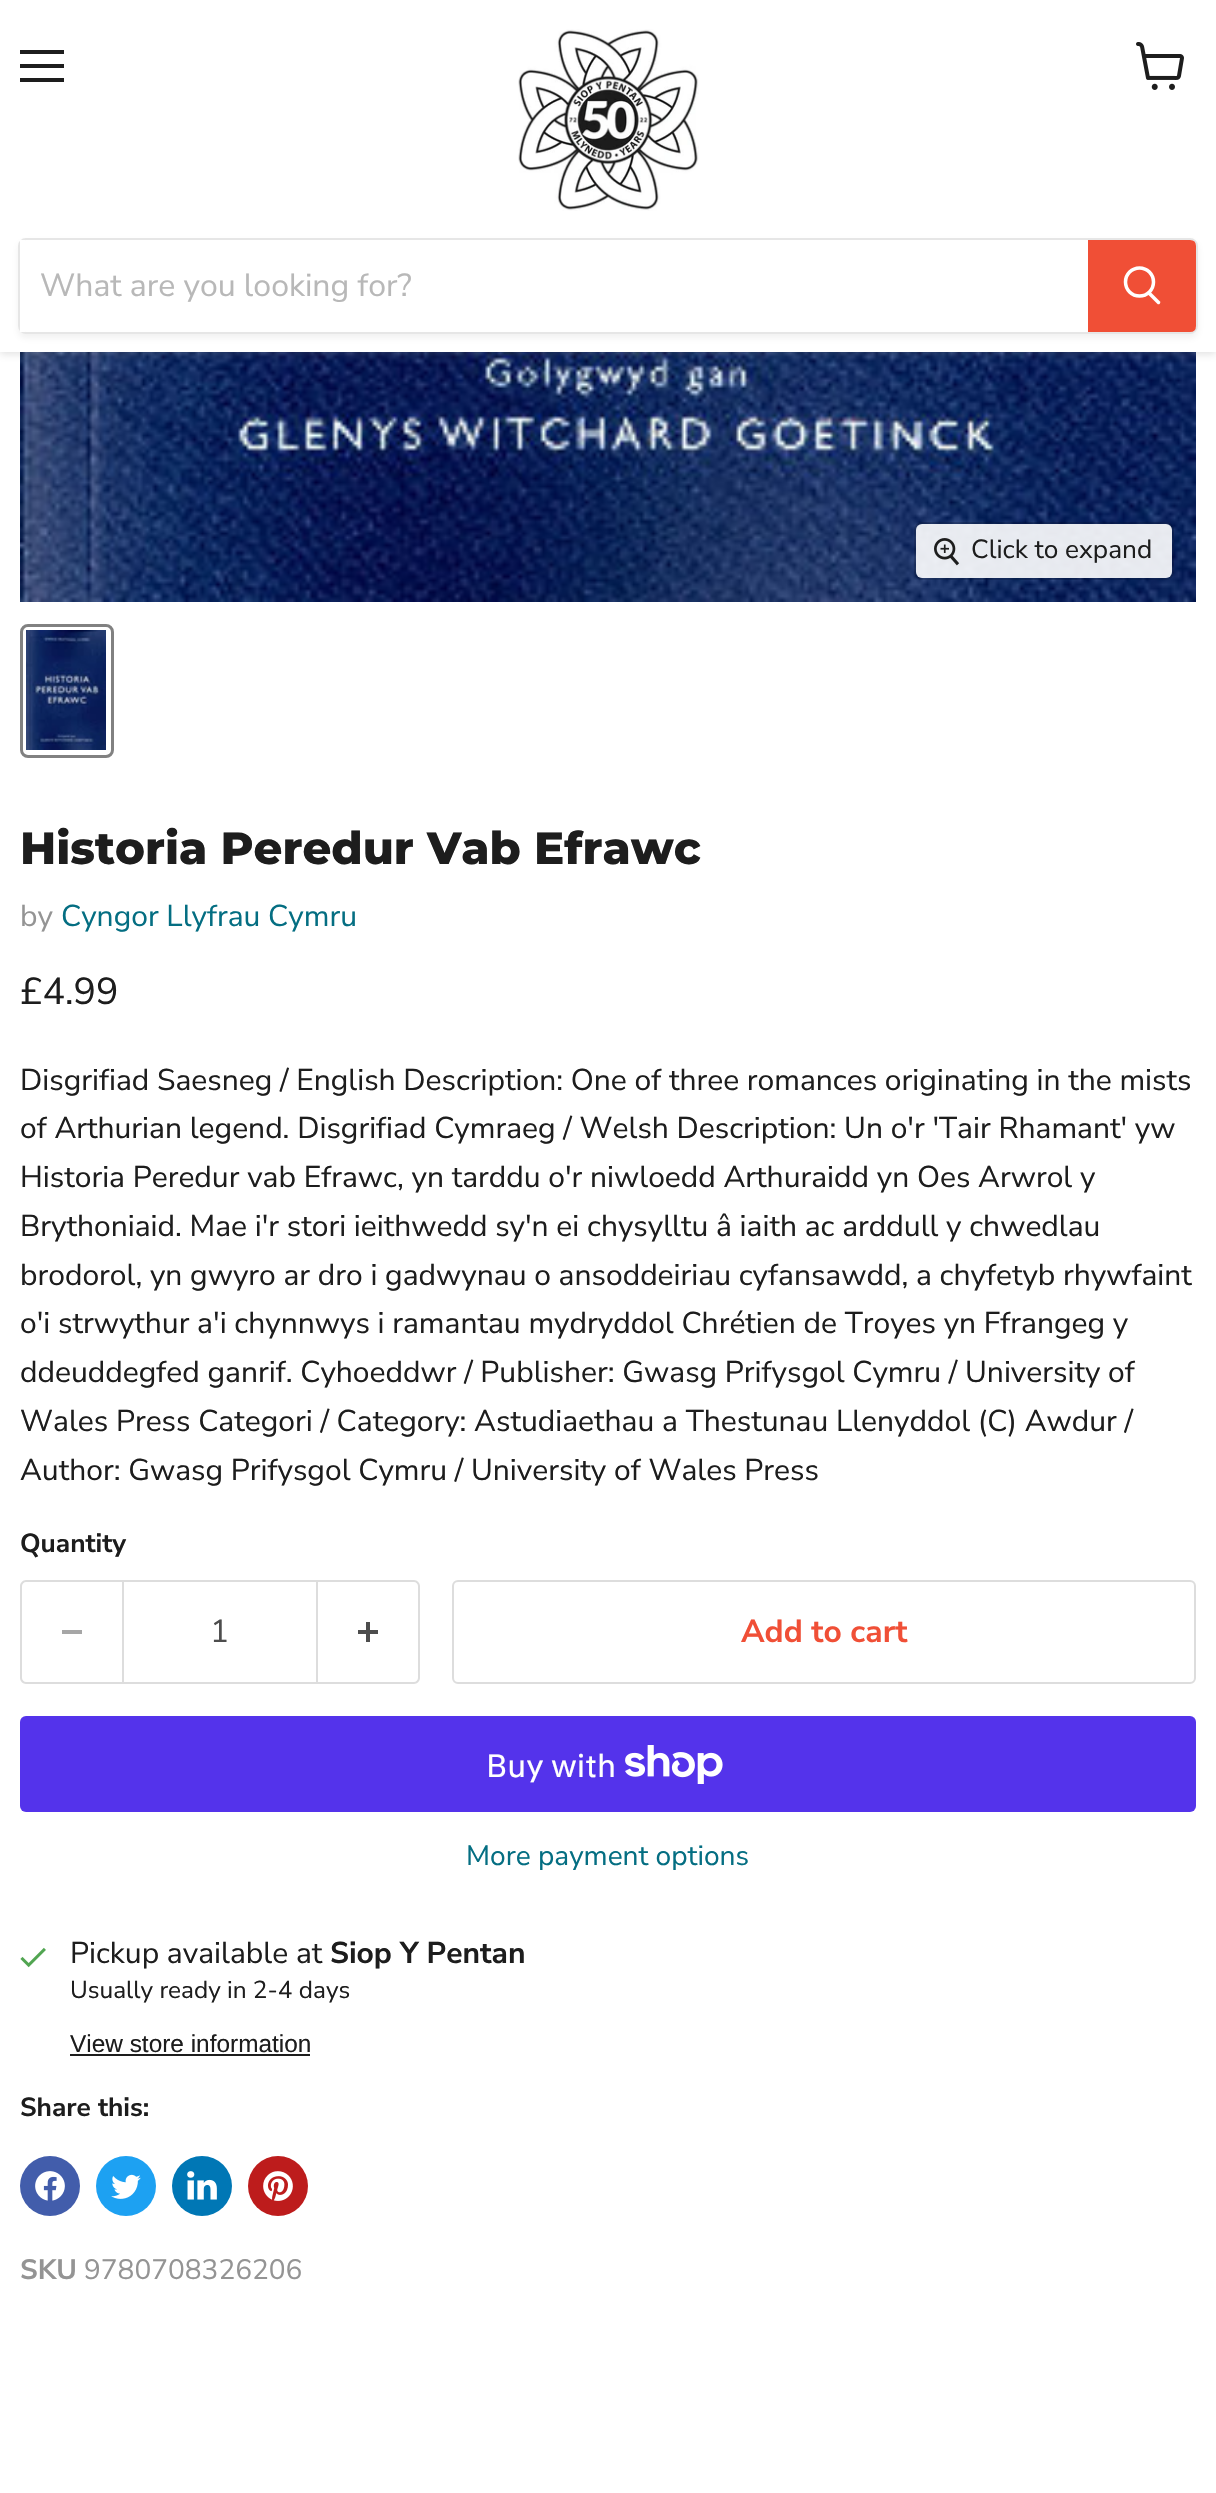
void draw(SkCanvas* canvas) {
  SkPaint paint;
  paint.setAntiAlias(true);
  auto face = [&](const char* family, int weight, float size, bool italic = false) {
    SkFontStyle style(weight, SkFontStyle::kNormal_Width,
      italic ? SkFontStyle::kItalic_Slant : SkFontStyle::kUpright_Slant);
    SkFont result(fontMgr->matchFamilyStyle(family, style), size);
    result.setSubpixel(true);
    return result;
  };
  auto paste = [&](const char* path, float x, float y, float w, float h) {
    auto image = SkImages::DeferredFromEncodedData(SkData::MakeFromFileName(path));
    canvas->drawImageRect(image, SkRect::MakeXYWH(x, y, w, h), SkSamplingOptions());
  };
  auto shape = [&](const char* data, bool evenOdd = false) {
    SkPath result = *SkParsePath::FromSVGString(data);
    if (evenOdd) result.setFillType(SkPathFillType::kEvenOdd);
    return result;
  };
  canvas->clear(0xffffffff);
  paste("img/3.png", 20, 352, 1176, 250);
  paint.setColor(0x40808080);
  paint.setMaskFilter(SkMaskFilter::MakeBlur(kNormal_SkBlurStyle, 4));
  canvas->drawRect(SkRect::MakeXYWH(0, 2, 1216, 352), paint);
  paint.setMaskFilter(nullptr);
  {
    const struct { float x, y, w, h; SkColor color; } items[] = {
      {0, 0, 1216, 352, 0xffffffff},
      {20, 50, 44, 4, 0xff1d1d1d},
      {20, 64, 44, 4, 0xff1d1d1d},
      {20, 78, 44, 4, 0xff1d1d1d},
    };
    for (auto [x, y, w, h, color] : items) {
      paint.setColor(color);
      canvas->drawRect(SkRect::MakeXYWH(x, y, w, h), paint);
    }
  }
  paste("img/1.png", 1136, 42, 48, 48);
  paste("img/2.png", 518, 29, 181, 182);
  canvas->save();
  canvas->clipPath(shape("M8 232H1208V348H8ZM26 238H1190C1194.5 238 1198 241.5 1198 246V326C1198 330.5 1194.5 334 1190 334H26C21.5 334 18 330.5 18 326V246C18 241.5 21.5 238 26 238Z", true), true);
  paint.setColor(0x1c808080);
  paint.setMaskFilter(SkMaskFilter::MakeBlur(kNormal_SkBlurStyle, 3));
  canvas->drawRoundRect(SkRect::MakeXYWH(18, 242, 1180, 96), 8, 8, paint);
  paint.setMaskFilter(nullptr);
  canvas->restore();
  paint.setStroke(true);
  paint.setStrokeWidth(2);
  paint.setColor(0x33808080);
  canvas->drawRoundRect(SkRect::MakeXYWH(19, 239, 1178, 94), 7, 7, paint);
  paint.setStroke(false);
  paint.setColor(0xffffffff);
  canvas->drawRect(SkRect::MakeXYWH(20, 240, 5, 92), paint);
  paint.setColor(0xfff04f36);
  canvas->drawPath(shape("M1089 241H1190C1193 241 1195 243 1195 246V326C1195 329 1193 331 1190 331H1089Z"), paint);
  paint.setStroke(true);
  canvas->drawPath(shape("M1089 241H1190C1193 241 1195 243 1195 246V326C1195 329 1193 331 1190 331H1089Z"), paint);
  paint.setStrokeWidth(3.5f);
  paint.setStrokeCap(SkPaint::kRound_Cap);
  paint.setColor(0xffffffff);
  canvas->drawPath(shape("M1158.5 302.5L1149 293"), paint);
  paint.setStrokeCap(SkPaint::kButt_Cap);
  canvas->drawCircle(1139.5f, 282, 14, paint);
  paint.setStrokeWidth(2);
  paint.setColor(0x26000000);
  canvas->drawRoundRect(SkRect::MakeXYWH(915, 523, 258, 56), 7, 7, paint);
  paint.setStroke(false);
  paint.setColor(0xe6ffffff);
  canvas->drawRoundRect(SkRect::MakeXYWH(916, 524, 256, 54), 6, 6, paint);
  paste("img/4.png", 934, 538, 26, 28);
  paint.setStroke(true);
  paint.setStrokeWidth(3);
  paint.setColor(0xff818181);
  canvas->drawRoundRect(SkRect::MakeXYWH(21.5f, 625.5f, 91, 131), 6.5f, 6.5f, paint);
  paste("img/5.png", 26, 630, 80, 120);
  paint.setStroke(false);
  paint.setColor(0xffdddddd);
  canvas->drawPath(shape("M26 1580H122V1684H26C23 1684 20 1681 20 1678V1586C20 1583 23 1580 26 1580ZM26 1582H122V1682H26C24 1682 22 1680 22 1678V1586C22 1584 24 1582 26 1582Z", true), paint);
  paint.setColor(0xffa6a6a6);
  canvas->drawRect(SkRect::MakeXYWH(62, 1630, 20, 4), paint);
  paint.setStroke(true);
  paint.setStrokeWidth(2);
  paint.setColor(0xffdddddd);
  canvas->drawRect(SkRect::MakeXYWH(123, 1581, 194, 102), paint);
  paint.setStroke(false);
  canvas->drawPath(shape("M318 1580H414C417 1580 420 1583 420 1586V1678C420 1681 417 1684 414 1684H318ZM318 1582H414C416 1582 418 1584 418 1586V1678C418 1680 416 1682 414 1682H318Z", true), paint);
  paste("img/6.png", 358, 1622, 20, 20);
  paint.setStroke(true);
  canvas->drawRoundRect(SkRect::MakeXYWH(453, 1581, 742, 102), 5, 5, paint);
  paint.setStroke(false);
  paint.setColor(0xff5433eb);
  canvas->drawRoundRect(SkRect::MakeXYWH(20, 1716, 1176, 96), 6, 6, paint);
  paste("img/7.png", 625, 1745, 98, 39);
  paste("img/8.png", 20, 1947, 26, 21);
  paint.setColor(0xff1d1d1d);
  canvas->drawRect(SkRect::MakeXYWH(70, 2054, 240, 2), paint);
  paint.setColor(0xff425dab);
  canvas->drawCircle(50, 2186, 30, paint);
  paste("img/9.png", 35, 2171, 30, 30);
  paint.setColor(0xff1da1f2);
  canvas->drawCircle(126, 2186, 30, paint);
  paste("img/10.png", 111, 2174, 30, 25);
  paint.setColor(0xff0077b5);
  canvas->drawCircle(202, 2186, 30, paint);
  paste("img/11.png", 187, 2171, 30, 29);
  paint.setColor(0xffbd1c1c);
  canvas->drawCircle(278, 2186, 30, paint);
  paste("img/12.png", 263, 2171, 30, 30);
  auto f0 = face("Nunito Sans", 400, 32);
  paint.setColor(0xffb8b8b8);
  canvas->drawString("What are you looking for?", 40, 296, f0, paint);
  auto f1 = face("Nunito Sans", 400, 26.25f);
  paint.setColor(0xff1d1d1d);
  canvas->drawString("Click to expand", 971, 558, f1, paint);
  auto f2 = face("Montserrat", 800, 45);
  canvas->drawString("Historia Peredur Vab Efrawc", 20, 864, f2, paint);
  auto f3 = face("Nunito Sans", 400, 30);
  paint.setColor(0xff949494);
  canvas->drawString("by", 20, 926, f3, paint);
  paint.setColor(0xff046e82);
  canvas->drawString("Cyngor Llyfrau Cymru", 61, 926, f3, paint);
  auto f4 = face("Nunito Sans", 400, 37.5f);
  paint.setColor(0xff1d1d1d);
  canvas->drawString("£4.99", 20, 1004, f4, paint);
  {
    const struct { const char* s; float x, y; } items[] = {
      {"Disgrifiad Saesneg / English Description: One of three romances originating in the mists", 20, 1090},
      {"of Arthurian legend. Disgrifiad Cymraeg / Welsh Description: Un o'r 'Tair Rhamant' yw", 20, 1138},
      {"Historia Peredur vab Efrawc, yn tarddu o'r niwloedd Arthuraidd yn Oes Arwrol y", 20, 1187},
      {"Brythoniaid. Mae i'r stori ieithwedd sy'n ei chysylltu â iaith ac arddull y chwedlau", 20, 1236},
      {"brodorol, yn gwyro ar dro i gadwynau o ansoddeiriau cyfansawdd, a chyfetyb rhywfaint", 20, 1285},
      {"o'i strwythur a'i chynnwys i ramantau mydryddol Chrétien de Troyes yn Ffrangeg y", 20, 1333},
      {"ddeuddegfed ganrif. Cyhoeddwr / Publisher: Gwasg Prifysgol Cymru / University of", 20, 1382},
      {"Wales Press Categori / Category: Astudiaethau a Thestunau Llenyddol (C) Awdur /", 20, 1431},
      {"Author: Gwasg Prifysgol Cymru / University of Wales Press", 20, 1480},
    };
    for (auto [s, x, y] : items) {
      canvas->drawString(s, x, y, f3, paint);
    }
  }
  auto f5 = face("Nunito Sans", 700, 26.25f);
  canvas->drawString("Quantity", 20, 1552, f5, paint);
  auto f6 = face("Nunito Sans", 400, 31.75f);
  paint.setColor(0xff4d4d4d);
  canvas->drawString("1", 210, 1642, f6, paint);
  auto f7 = face("Nunito Sans", 700, 31.75f);
  paint.setColor(0xfff04f36);
  canvas->drawString("Add to cart", 741, 1642, f7, paint);
  auto f8 = face("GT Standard", 400, 32);
  paint.setColor(0xffffffff);
  canvas->drawString("Buy with", 486, 1777, f8, paint);
  auto f9 = face("Nunito Sans", 400, 28.1f);
  paint.setColor(0xff046e82);
  canvas->drawString("More payment options", 466, 1865, f9, paint);
  paint.setColor(0xff1d1d1d);
  canvas->drawString("Pickup available at", 70, 1963, f3, paint);
  auto f10 = face("Nunito Sans", 700, 30);
  canvas->drawString("Siop Y Pentan", 330, 1963, f10, paint);
  auto f11 = face("Nunito Sans", 400, 24.4f);
  canvas->drawString("Usually ready in 2-4 days", 70, 1998, f11, paint);
  auto f12 = face("Liberation Sans", 400, 24.4f);
  canvas->drawString("View store information", 70, 2052, f12, paint);
  canvas->drawString("Share this:", 20, 2116, f5, paint);
  auto f13 = face("Nunito Sans", 700, 28);
  paint.setColor(0xff949494);
  canvas->drawString("SKU", 20, 2279, f13, paint);
  auto f14 = face("Nunito Sans", 400, 28);
  canvas->drawString("9780708326206", 84, 2279, f14, paint);
}
